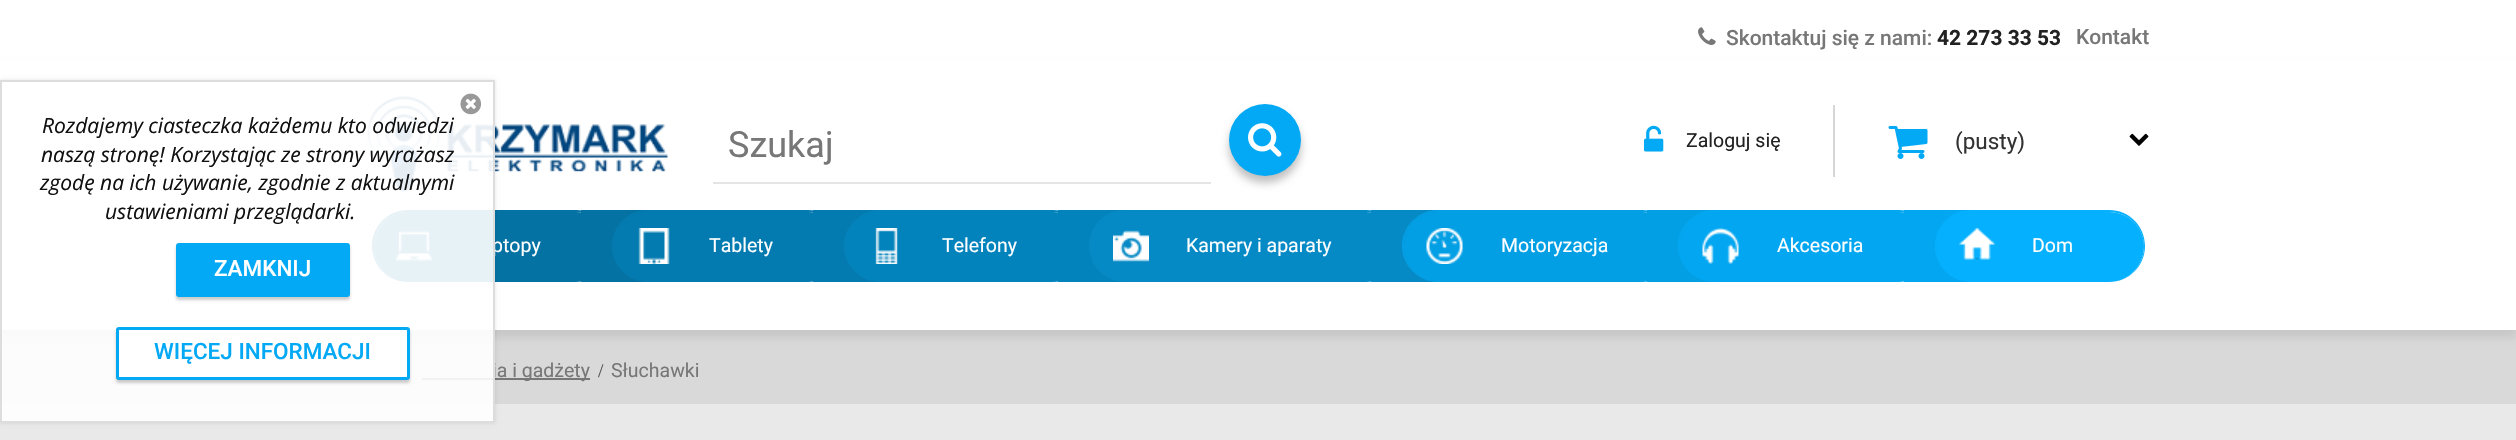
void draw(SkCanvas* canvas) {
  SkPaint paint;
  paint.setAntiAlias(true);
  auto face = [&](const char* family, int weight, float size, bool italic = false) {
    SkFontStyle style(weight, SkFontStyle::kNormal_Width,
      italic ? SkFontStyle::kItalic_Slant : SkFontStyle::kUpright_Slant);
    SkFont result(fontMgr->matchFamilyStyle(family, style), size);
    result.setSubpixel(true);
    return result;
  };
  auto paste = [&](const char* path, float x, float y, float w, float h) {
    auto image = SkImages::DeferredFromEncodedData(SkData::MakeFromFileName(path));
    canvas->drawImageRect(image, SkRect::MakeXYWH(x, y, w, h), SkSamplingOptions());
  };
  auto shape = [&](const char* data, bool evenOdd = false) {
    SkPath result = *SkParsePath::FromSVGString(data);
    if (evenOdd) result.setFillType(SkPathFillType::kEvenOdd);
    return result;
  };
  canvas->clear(0xffe9e9e9);
  paint.setColor(0xffffffff);
  canvas->drawRect(SkRect::MakeXYWH(0, 0, 2516, 60), paint);
  canvas->drawRoundRect(SkRect::MakeXYWH(1698, 0, 378, 68), 5, 5, paint);
  paste("img/1.png", 1698, 27, 18, 18);
  canvas->drawRoundRect(SkRect::MakeXYWH(2076, -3, 74, 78), 5, 5, paint);
  paint.setColor(0xffd9d9d9);
  canvas->drawRect(SkRect::MakeXYWH(2, 330, 2514, 74), paint);
  paint.setColor(0x14000000);
  paint.setMaskFilter(SkMaskFilter::MakeBlur(kNormal_SkBlurStyle, 4));
  canvas->drawRect(SkRect::MakeXYWH(0, 68, 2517, 270), paint);
  paint.setMaskFilter(nullptr);
  paint.setColor(0xffffffff);
  canvas->drawRect(SkRect::MakeXYWH(0, 60, 2516, 270), paint);
  paste("img/3.png", 367, 95, 301, 98);
  paint.setColor(0xff0472a3);
  canvas->drawRect(SkRect::MakeXYWH(581, 210, 67, 72), paint);
  canvas->drawPath(shape("M408 212H576C595 212 610 227 610 246C610 266 595 282 576 282H408C389 282 374 266 374 246C374 227 389 212 408 212Z"), paint);
  canvas->drawPath(shape("M408 210H576C596 210 612 226 612 246C612 266 596 282 576 282H408C388 282 372 266 372 246C372 226 388 210 408 210ZM408 212H576C595 212 610 227 610 246C610 266 595 282 576 282H408C389 282 374 266 374 246C374 227 389 212 408 212Z", true), paint);
  paste("img/8.png", 396, 230, 36, 32);
  paint.setColor(0xff777777);
  canvas->drawRect(SkRect::MakeXYWH(422, 378, 168, 2), paint);
  canvas->save();
  canvas->clipPath(shape("M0 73H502V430H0ZM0 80H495V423H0Z", true), true);
  paint.setColor(0x1a000000);
  paint.setMaskFilter(SkMaskFilter::MakeBlur(kNormal_SkBlurStyle, 2));
  canvas->drawRect(SkRect::MakeXYWH(0, 80, 495, 343), paint);
  paint.setMaskFilter(nullptr);
  canvas->restore();
  paint.setColor(0xe6ffffff);
  canvas->drawRect(SkRect::MakeXYWH(2, 95, 491, 326), paint);
  paint.setColor(0xffe5e5e5);
  canvas->drawRect(SkRect::MakeXYWH(713, 182, 498, 2), paint);
  paint.setColor(0x40000000);
  paint.setMaskFilter(SkMaskFilter::MakeBlur(kNormal_SkBlurStyle, 4));
  canvas->drawRoundRect(SkRect::MakeXYWH(1229, 111, 72, 72), 36, 36, paint);
  paint.setMaskFilter(nullptr);
  paint.setColor(0xff03a9f4);
  canvas->drawCircle(1265, 140, 36, paint);
  paste("img/4.png", 1248, 123, 34, 34);
  paste("img/5.png", 1644, 125, 20, 27);
  paint.setColor(0xffd6d6d6);
  canvas->drawRect(SkRect::MakeXYWH(1833, 105, 2, 72), paint);
  paste("img/6.png", 1888, 126, 40, 33);
  paste("img/7.png", 2129, 133, 20, 13);
  paint.setColor(0xff047bb0);
  canvas->drawRect(SkRect::MakeXYWH(813, 210, 67, 72), paint);
  canvas->drawPath(shape("M648 212H808C828 212 843 227 843 246C843 266 828 282 808 282H648C629 282 614 266 614 246C614 227 629 212 648 212Z"), paint);
  canvas->drawPath(shape("M648 210H808C828 210 844 226 844 246C844 266 828 282 808 282H648C628 282 612 266 612 246C612 226 628 210 648 210ZM648 212H808C828 212 843 227 843 246C843 266 828 282 808 282H648C629 282 614 266 614 246C614 227 629 212 648 212Z", true), paint);
  paste("img/9.png", 638, 228, 32, 36);
  paint.setColor(0xff0383bc);
  canvas->drawRect(SkRect::MakeXYWH(1058, 210, 67, 72), paint);
  canvas->drawPath(shape("M880 212H1053C1072 212 1088 227 1088 246C1088 266 1072 282 1053 282H880C861 282 846 266 846 246C846 227 861 212 880 212Z"), paint);
  canvas->drawPath(shape("M880 210H1053C1073 210 1089 226 1089 246C1089 266 1073 282 1053 282H880C861 282 844 266 844 246C844 226 861 210 880 210ZM880 212H1053C1072 212 1088 227 1088 246C1088 266 1072 282 1053 282H880C861 282 846 266 846 246C846 227 861 212 880 212Z", true), paint);
  paste("img/10.png", 875, 228, 23, 36);
  paint.setColor(0xff058ac6);
  canvas->drawRect(SkRect::MakeXYWH(1371, 210, 67, 72), paint);
  canvas->drawPath(shape("M1125 212H1366C1386 212 1401 227 1401 246C1401 266 1386 282 1366 282H1125C1106 282 1090 266 1090 246C1090 227 1106 212 1125 212Z"), paint);
  canvas->drawPath(shape("M1125 210H1366C1386 210 1402 226 1402 246C1402 266 1386 282 1366 282H1125C1105 282 1089 266 1089 246C1089 226 1105 210 1125 210ZM1125 212H1366C1386 212 1401 227 1401 246C1401 266 1386 282 1366 282H1125C1106 282 1090 266 1090 246C1090 227 1106 212 1125 212Z", true), paint);
  paste("img/11.png", 1113, 230, 36, 32);
  paint.setColor(0xff039fe5);
  canvas->drawRect(SkRect::MakeXYWH(1647, 210, 67, 72), paint);
  canvas->drawPath(shape("M1438 212H1642C1662 212 1677 227 1677 246C1677 266 1662 282 1642 282H1438C1419 282 1404 266 1404 246C1404 227 1419 212 1438 212Z"), paint);
  canvas->drawPath(shape("M1438 210H1642C1662 210 1678 226 1678 246C1678 266 1662 282 1642 282H1438C1419 282 1402 266 1402 246C1402 226 1419 210 1438 210ZM1438 212H1642C1662 212 1677 227 1677 246C1677 266 1662 282 1642 282H1438C1419 282 1404 266 1404 246C1404 227 1419 212 1438 212Z", true), paint);
  paste("img/12.png", 1426, 228, 37, 36);
  paint.setColor(0xff03a7f1);
  canvas->drawRect(SkRect::MakeXYWH(1904, 210, 67, 72), paint);
  canvas->drawPath(shape("M1714 212H1899C1918 212 1934 227 1934 246C1934 266 1918 282 1899 282H1714C1695 282 1680 266 1680 246C1680 227 1695 212 1714 212Z"), paint);
  canvas->drawPath(shape("M1714 210H1899C1919 210 1935 226 1935 246C1935 266 1919 282 1899 282H1714C1695 282 1678 266 1678 246C1678 226 1695 210 1714 210ZM1714 212H1899C1918 212 1934 227 1934 246C1934 266 1918 282 1899 282H1714C1695 282 1680 266 1680 246C1680 227 1695 212 1714 212Z", true), paint);
  paste("img/13.png", 1702, 228, 37, 36);
  paint.setColor(0xff05b0fe);
  canvas->drawPath(shape("M1971 212H2109C2128 212 2144 227 2144 246C2144 266 2128 282 2109 282H1971C1952 282 1936 266 1936 246C1936 227 1952 212 1971 212Z"), paint);
  canvas->drawPath(shape("M1971 210H2109C2129 210 2145 226 2145 246C2145 266 2129 282 2109 282H1971C1951 282 1935 266 1935 246C1935 226 1951 210 1971 210ZM1971 212H2109C2128 212 2144 227 2144 246C2144 266 2128 282 2109 282H1971C1952 282 1936 266 1936 246C1936 227 1952 212 1971 212Z", true), paint);
  paste("img/14.png", 1959, 228, 36, 32);
  auto f0 = face("Roboto", 500, 21);
  paint.setColor(0xff777777);
  canvas->drawString("Skontaktuj się z nami:", 1726, 45, f0, paint);
  auto f1 = face("Roboto", 700, 21);
  paint.setColor(0xff222222);
  canvas->drawString("42 273 33 53", 1937, 45, f1, paint);
  paint.setColor(0xff777777);
  canvas->drawString("Kontakt", 2076, 44, f0, paint);
  auto f2 = face("Roboto", 400, 36);
  canvas->drawString("Szukaj", 728, 157, f2, paint);
  auto f3 = face("Roboto", 400, 19.5f);
  paint.setColor(0xff222222);
  canvas->drawString("Zaloguj się", 1686, 147, f3, paint);
  auto f4 = face("Roboto", 400, 22.5f);
  paint.setColor(0xff323232);
  canvas->drawString("(pusty)", 1955, 149, f4, paint);
  paint.setColor(0xffffffff);
  {
    const struct { const char* s; float x, y; } items[] = {
      {"ptopy", 492, 252},
      {"Tablety", 709, 252},
      {"Telefony", 942, 252},
      {"Kamery i aparaty", 1186, 252},
      {"Motoryzacja", 1501, 252},
      {"Akcesoria", 1777, 252},
      {"Dom", 2032, 252},
    };
    for (auto [s, x, y] : items) {
      canvas->drawString(s, x, y, f3, paint);
    }
  }
  paint.setColor(0xff777777);
  canvas->drawString("ia i gadżety", 492, 377, f3, paint);
  paint.setStroke(true);
  paint.setStrokeWidth(2);
  paint.setColor(0xffdddddd);
  canvas->drawRect(SkRect::MakeXYWH(1, 81, 493, 341), paint);
  paint.setStroke(false);
  paint.setColor(0x33000000);
  paint.setMaskFilter(SkMaskFilter::MakeBlur(kNormal_SkBlurStyle, 1.5f));
  canvas->drawRoundRect(SkRect::MakeXYWH(116, 330, 294, 53), 3, 3, paint);
  paint.setMaskFilter(nullptr);
  paint.setColor(0xffffffff);
  canvas->drawRoundRect(SkRect::MakeXYWH(117.5f, 328.5f, 291, 50), 1.5f, 1.5f, paint);
  paint.setStroke(true);
  paint.setStrokeWidth(3);
  paint.setColor(0xff03a9f4);
  canvas->drawRoundRect(SkRect::MakeXYWH(117.5f, 328.5f, 291, 50), 1.5f, 1.5f, paint);
  auto f5 = face("Roboto", 500, 22.5f);
  paint.setStroke(false);
  canvas->drawString("WIĘCEJ INFORMACJI", 154, 359, f5, paint);
  paint.setColor(0x33000000);
  paint.setMaskFilter(SkMaskFilter::MakeBlur(kNormal_SkBlurStyle, 1.5f));
  canvas->drawRoundRect(SkRect::MakeXYWH(176, 246, 174, 54), 3, 3, paint);
  paint.setMaskFilter(nullptr);
  paint.setColor(0xff03a9f4);
  canvas->drawRoundRect(SkRect::MakeXYWH(177.5f, 244.5f, 171, 51), 1.5f, 1.5f, paint);
  paint.setStroke(true);
  canvas->drawRoundRect(SkRect::MakeXYWH(177.5f, 244.5f, 171, 51), 1.5f, 1.5f, paint);
  paint.setStroke(false);
  paint.setColor(0xffffffff);
  canvas->drawString("ZAMKNIJ", 214, 276, f5, paint);
  paste("img/2.png", 460, 93, 22, 22);
  auto f6 = face("Open Sans", 400, 21, true);
  paint.setColor(0xff111111);
  {
    const struct { const char* s; float x, y; } items[] = {
      {"ustawieniami przeglądarki.", 105, 219},
      {"zgodę na ich używanie, zgodnie z aktualnymi", 40, 190},
      {"naszą stronę! Korzystając ze strony wyrażasz", 41, 162},
      {"Rozdajemy ciasteczka każdemu kto odwiedzi", 42, 133},
    };
    for (auto [s, x, y] : items) {
      canvas->drawString(s, x, y, f6, paint);
    }
  }
  auto f7 = face("Liberation Serif", 400, 19.5f);
  paint.setColor(0xff555555);
  canvas->drawString("/", 598, 377, f7, paint);
  paint.setColor(0xff777777);
  canvas->drawString("Słuchawki", 611, 377, f3, paint);
}
